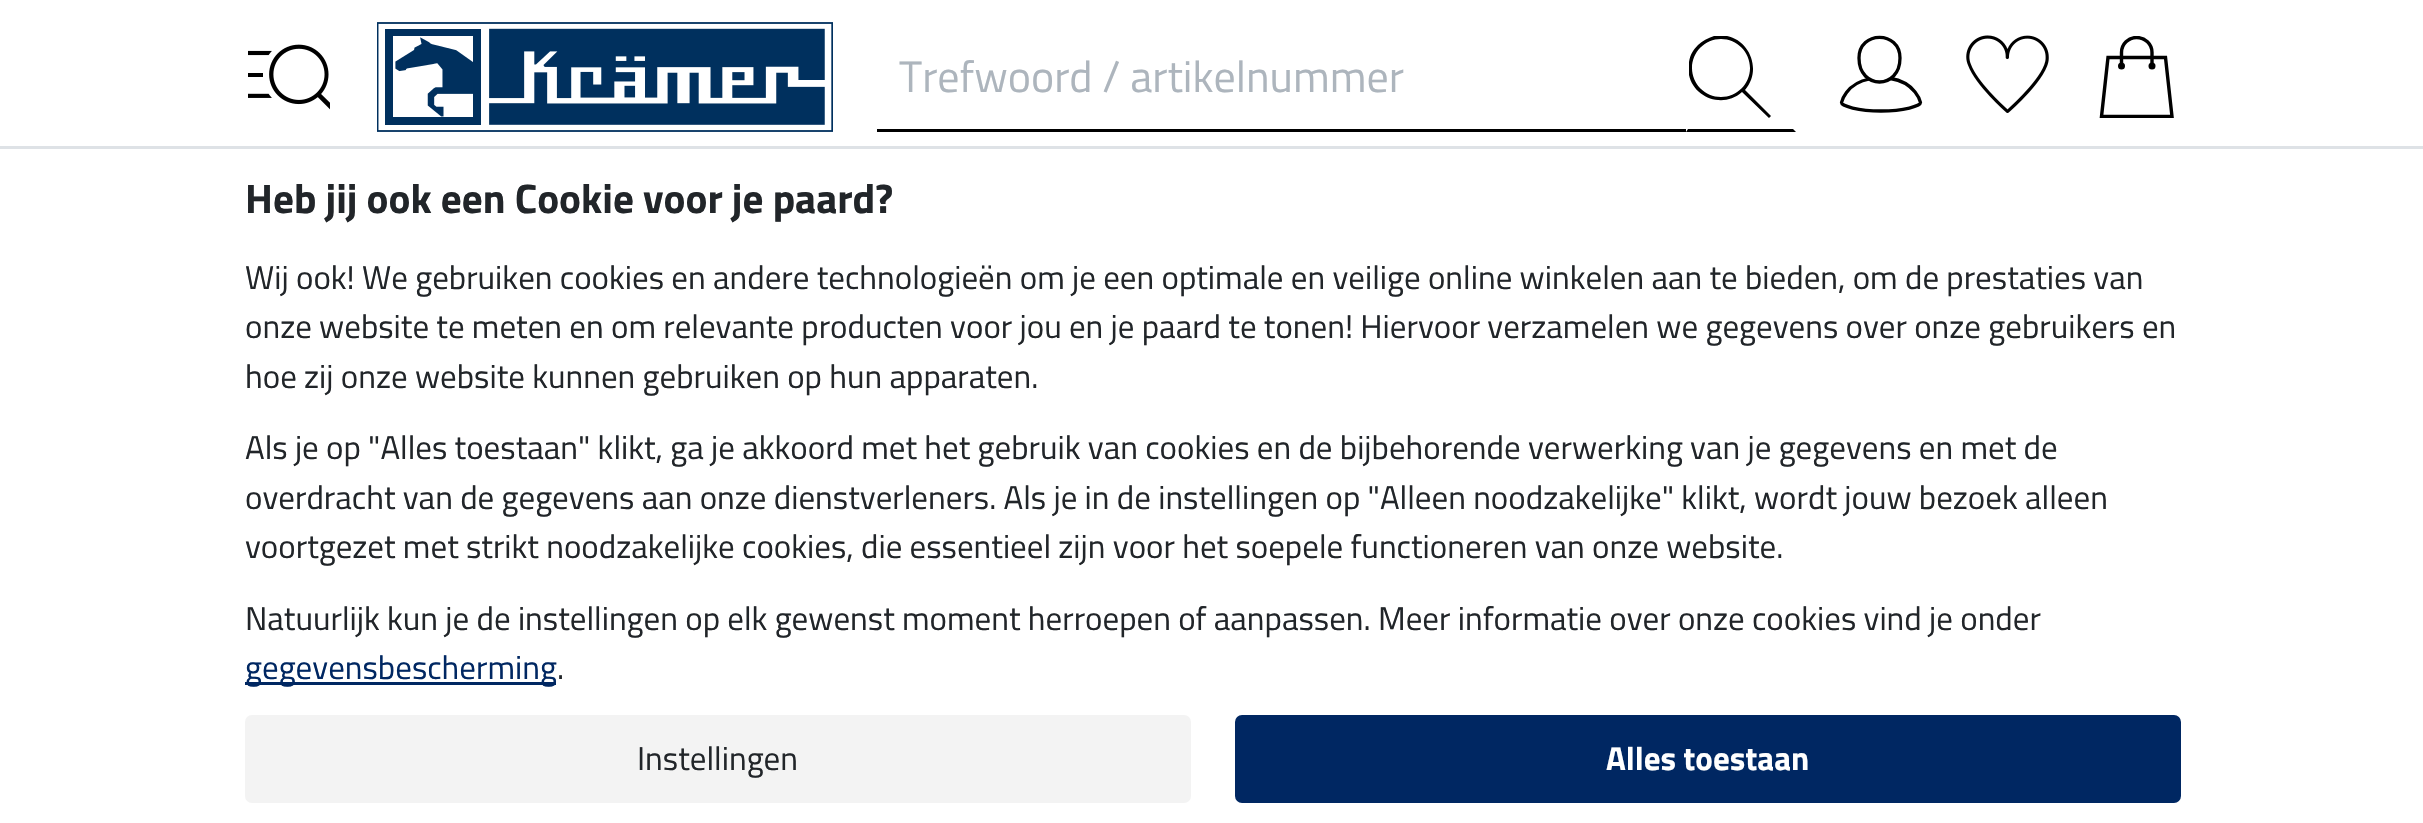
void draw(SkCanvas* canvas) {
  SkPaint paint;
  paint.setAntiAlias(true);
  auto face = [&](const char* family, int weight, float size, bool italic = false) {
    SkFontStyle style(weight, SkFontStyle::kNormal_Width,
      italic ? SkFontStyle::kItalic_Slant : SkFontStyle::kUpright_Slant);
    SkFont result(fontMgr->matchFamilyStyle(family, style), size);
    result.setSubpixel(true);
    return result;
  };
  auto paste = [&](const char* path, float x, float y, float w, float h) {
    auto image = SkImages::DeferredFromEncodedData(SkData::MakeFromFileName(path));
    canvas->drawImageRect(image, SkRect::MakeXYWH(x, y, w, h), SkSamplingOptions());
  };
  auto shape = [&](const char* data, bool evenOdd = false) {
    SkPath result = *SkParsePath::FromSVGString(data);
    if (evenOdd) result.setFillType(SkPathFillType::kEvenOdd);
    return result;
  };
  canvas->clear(0xffffffff);
  paste("img/1.png", 248, 44, 82, 66);
  paste("img/2.png", 377, 22, 456, 110);
  paint.setColor(0xff000000);
  canvas->drawRect(SkRect::MakeXYWH(877, 129, 812, 3), paint);
  paint.setColor(0xffffffff);
  canvas->drawRect(SkRect::MakeXYWH(1686, 129, 3, 3), paint);
  paint.setColor(0xff000000);
  canvas->drawPath(shape("M1796 132H1686L1688 129H1793Z"), paint);
  canvas->save();
  canvas->clipRect(SkRect::MakeXYWH(1689, 36, 82, 82));
  canvas->drawPath(shape("M1750 68C1750 52 1737 39 1721 39C1705 39 1692 52 1692 68C1692 84 1705 97 1721 97C1737 97 1750 84 1750 68ZM1771 116L1769 118L1742 92C1720 112 1683 93 1689 62C1690 55 1693 50 1698 45C1702 41 1708 38 1714 36C1745 30 1765 67 1745 90Z", true), paint);
  canvas->restore();
  paint.setStroke(true);
  paint.setStrokeWidth(3.3f);
  paint.setStrokeJoin(SkPaint::kRound_Join);
  canvas->drawPath(shape("M1900 58C1900 90 1859 90 1859 58C1859 30.5 1900 30.5 1900 58Z"), paint);
  canvas->drawPath(shape("M1869.5 79C1845.5 83.5 1841.5 102.5 1841.5 102.5C1841.5 106 1858 111 1881 111C1904 111 1920.5 106 1920.5 102.5C1920.5 102.5 1916 82.5 1890.5 78.5"), paint);
  paste("img/3.png", 1966, 35, 83, 78);
  canvas->save();
  canvas->clipRect(SkRect::MakeXYWH(2096, 36, 82, 82));
  paint.setStrokeWidth(3.4f);
  paint.setStrokeCap(SkPaint::kRound_Cap);
  paint.setStrokeJoin(SkPaint::kMiter_Join);
  canvas->drawPath(shape("M2108 57.5L2101.5 116.5H2172L2165.5 57.5Z"), paint);
  canvas->drawPath(shape("M2152 66V52.5C2152 44 2145 37.5 2136.5 37.5C2128.5 37.5 2121.5 44 2121.5 52.5V66"), paint);
  canvas->restore();
  paint.setStroke(false);
  canvas->drawCircle(2121.5f, 66, 3.5f, paint);
  canvas->drawCircle(2152, 66, 3.5f, paint);
  paint.setColor(0xffdee2e6);
  canvas->drawRect(SkRect::MakeXYWH(0, 146, 2423, 3), paint);
  paint.setColor(0xff002762);
  canvas->drawRect(SkRect::MakeXYWH(245, 682, 311, 3), paint);
  paint.setColor(0xfff3f3f3);
  canvas->drawRoundRect(SkRect::MakeXYWH(246.5f, 716.5f, 943, 85), 5.5f, 5.5f, paint);
  paint.setStroke(true);
  paint.setStrokeWidth(3);
  paint.setStrokeCap(SkPaint::kButt_Cap);
  canvas->drawRoundRect(SkRect::MakeXYWH(246.5f, 716.5f, 943, 85), 5.5f, 5.5f, paint);
  paint.setStroke(false);
  paint.setColor(0xff002762);
  canvas->drawRoundRect(SkRect::MakeXYWH(1236.5f, 716.5f, 943, 85), 5.5f, 5.5f, paint);
  paint.setStroke(true);
  canvas->drawRoundRect(SkRect::MakeXYWH(1236.5f, 716.5f, 943, 85), 5.5f, 5.5f, paint);
  auto f0 = face("Titillium Web", 400, 44);
  paint.setStroke(false);
  paint.setColor(0xffadb5bd);
  canvas->drawString("Trefwoord / artikelnummer", 899, 92, f0, paint);
  auto f1 = face("Titillium Web", 700, 41.25f);
  paint.setColor(0xff212529);
  canvas->drawString("Heb jij ook een Cookie voor je paard?", 245, 213, f1, paint);
  auto f2 = face("Titillium Web", 400, 33);
  {
    const struct { const char* s; float x, y; } items[] = {
      {"Wij ook! We gebruiken cookies en andere technologieën om je een optimale en veilige online winkelen aan te bieden, om de prestaties van", 245, 289},
      {"onze website te meten en om relevante producten voor jou en je paard te tonen! Hiervoor verzamelen we gegevens over onze gebruikers en", 245, 338},
      {"hoe zij onze website kunnen gebruiken op hun apparaten.", 245, 388},
      {"Als je op \"Alles toestaan\" klikt, ga je akkoord met het gebruik van cookies en de bijbehorende verwerking van je gegevens en met de", 245, 459},
      {"overdracht van de gegevens aan onze dienstverleners. Als je in de instellingen op \"Alleen noodzakelijke\" klikt, wordt jouw bezoek alleen", 245, 509},
      {"voortgezet met strikt noodzakelijke cookies, die essentieel zijn voor het soepele functioneren van onze website.", 245, 558},
      {"Natuurlijk kun je de instellingen op elk gewenst moment herroepen of aanpassen. Meer informatie over onze cookies vind je onder", 245, 630},
    };
    for (auto [s, x, y] : items) {
      canvas->drawString(s, x, y, f2, paint);
    }
  }
  paint.setColor(0xff002762);
  canvas->drawString("gegevensbescherming", 245, 679, f2, paint);
  paint.setColor(0xff212529);
  canvas->drawString(".", 557, 679, f2, paint);
  canvas->drawString("Instellingen", 637, 770, f2, paint);
  auto f3 = face("Titillium Web", 700, 33);
  paint.setColor(0xffffffff);
  canvas->drawString("Alles toestaan", 1606, 770, f3, paint);
}
